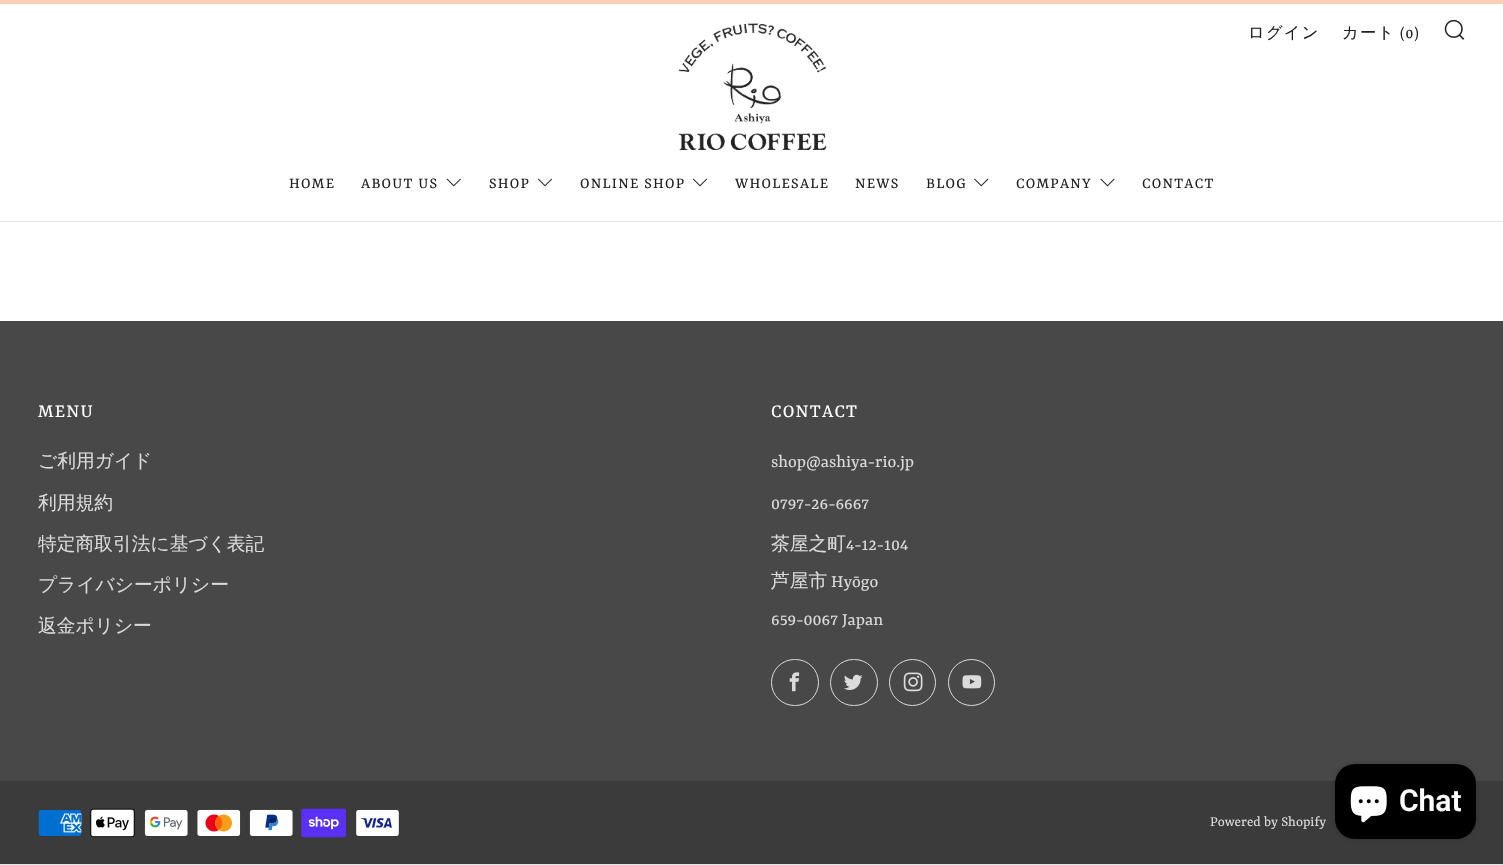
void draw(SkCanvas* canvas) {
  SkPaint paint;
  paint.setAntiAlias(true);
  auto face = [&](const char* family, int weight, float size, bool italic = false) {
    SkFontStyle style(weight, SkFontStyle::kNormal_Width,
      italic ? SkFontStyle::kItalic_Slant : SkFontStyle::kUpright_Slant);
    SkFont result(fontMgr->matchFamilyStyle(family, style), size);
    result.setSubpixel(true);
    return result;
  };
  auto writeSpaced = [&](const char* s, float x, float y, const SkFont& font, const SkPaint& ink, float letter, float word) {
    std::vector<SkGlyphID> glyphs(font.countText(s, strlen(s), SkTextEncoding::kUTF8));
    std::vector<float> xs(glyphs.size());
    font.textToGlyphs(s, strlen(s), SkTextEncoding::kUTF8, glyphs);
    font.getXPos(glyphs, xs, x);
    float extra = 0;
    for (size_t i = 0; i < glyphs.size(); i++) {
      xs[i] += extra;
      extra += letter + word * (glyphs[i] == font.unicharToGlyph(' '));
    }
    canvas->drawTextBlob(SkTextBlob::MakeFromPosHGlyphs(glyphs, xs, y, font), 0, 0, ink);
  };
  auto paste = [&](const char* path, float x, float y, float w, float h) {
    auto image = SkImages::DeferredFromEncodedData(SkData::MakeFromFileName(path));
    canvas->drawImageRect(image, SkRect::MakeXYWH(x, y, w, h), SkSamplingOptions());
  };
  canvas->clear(0xffe4e4e4);
  {
    const struct { float x, y, w, h; SkColor color; } items[] = {
      {0, 4, 1503, 317, 0xffffffff},
      {0, 221, 1503, 1, 0xffe4e4e4},
      {0, 0, 1503, 4, 0xfffccfb4},
    };
    for (auto [x, y, w, h, color] : items) {
      paint.setColor(color);
      canvas->drawRect(SkRect::MakeXYWH(x, y, w, h), paint);
    }
  }
  paste("img/1.png", 678, 23, 149, 128);
  paste("img/2.png", 1444, 19, 21, 21);
  paste("img/3.png", 446, 178, 15, 9);
  paste("img/4.png", 537, 178, 16, 9);
  paste("img/4.png", 692, 178, 16, 9);
  paste("img/5.png", 974, 178, 15, 9);
  paste("img/6.png", 1100, 178, 15, 9);
  paint.setColor(0xff484848);
  canvas->drawRect(SkRect::MakeXYWH(0, 321, 1503, 460), paint);
  paint.setStroke(true);
  paint.setStrokeWidth(1);
  paint.setColor(0xffdadada);
  canvas->drawRoundRect(SkRect::MakeXYWH(771.5f, 659.5f, 47, 46), 23, 23, paint);
  paste("img/7.png", 789, 672, 11, 20);
  canvas->drawRoundRect(SkRect::MakeXYWH(830.5f, 659.5f, 47, 46), 23, 23, paint);
  paste("img/8.png", 844, 674, 19, 16);
  canvas->drawCircle(912.5f, 682.5f, 23, paint);
  paste("img/9.png", 903, 672, 20, 20);
  canvas->drawCircle(971.5f, 682.5f, 23, paint);
  paste("img/10.png", 962, 675, 20, 14);
  paint.setStroke(false);
  paint.setColor(0xff3b3b3b);
  canvas->drawRect(SkRect::MakeXYWH(0, 781, 1503, 83), paint);
  paste("img/11.png", 38, 809, 44, 28);
  paste("img/12.png", 90, 808, 45, 30);
  paste("img/13.png", 144, 809, 44, 28);
  paste("img/14.png", 197, 809, 44, 28);
  paste("img/15.png", 249, 809, 44, 28);
  paste("img/16.png", 301, 808, 45, 30);
  paste("img/17.png", 355, 809, 45, 28);
  paint.setColor(0x26000000);
  paint.setMaskFilter(SkMaskFilter::MakeBlur(kNormal_SkBlurStyle, 3));
  canvas->drawRoundRect(SkRect::MakeXYWH(1335, 764, 141, 75), 20, 20, paint);
  paint.setMaskFilter(nullptr);
  paint.setColor(0xff000000);
  canvas->drawRoundRect(SkRect::MakeXYWH(1335, 764, 141, 75), 20, 20, paint);
  paste("img/18.png", 1350, 786, 37, 37);
  auto f0 = face("WenQuanYi Zen Hei", 500, 16.25f);
  paint.setColor(0xff212121);
  writeSpaced("ログイン", 1248, 38, f0, paint, 1.25f, 0);
  writeSpaced("カート", 1342, 38, f0, paint, 1.25f, 0);
  auto f1 = face("Rasa", 400, 16.25f);
  {
    const struct { const char* s; float x, y; } items[] = {
      {"(0)", 1400, 38},
      {"HOME", 289, 188},
      {"ABOUT US", 361, 188},
      {"SHOP", 489, 188},
      {"ONLINE SHOP", 580, 188},
      {"WHOLESALE", 735, 188},
      {"NEWS", 855, 188},
      {"BLOG", 926, 188},
      {"COMPANY", 1016, 188},
      {"CONTACT", 1142, 188},
    };
    for (auto [s, x, y] : items) {
      writeSpaced(s, x, y, f1, paint, 1.25f, 0);
    }
  }
  auto f2 = face("Rasa", 400, 20);
  paint.setColor(0xffffffff);
  writeSpaced("MENU", 38, 417, f2, paint, 1.25f, 0);
  auto f3 = face("WenQuanYi Zen Hei", 500, 18.75f);
  paint.setColor(0xffdadada);
  {
    const struct { const char* s; float x, y; } items[] = {
      {"ご利用ガイド", 38, 467},
      {"利用規約", 38, 509},
      {"特定商取引法に基づく表記", 38, 550},
      {"プライバシーポリシー", 38, 591},
      {"返金ポリシー", 38, 632},
    };
    for (auto [s, x, y] : items) {
      canvas->drawString(s, x, y, f3, paint);
    }
  }
  paint.setColor(0xffffffff);
  writeSpaced("CONTACT", 771, 417, f2, paint, 1.25f, 0);
  auto f4 = face("Rasa", 400, 18.75f);
  paint.setColor(0xffdadada);
  canvas->drawString("shop@ashiya-rio.jp", 771, 467, f4, paint);
  canvas->drawString("0797-26-6667", 771, 509, f4, paint);
  canvas->drawString("茶屋之町", 771, 550, f3, paint);
  canvas->drawString("4-12-104", 846, 550, f4, paint);
  canvas->drawString("芦屋市", 771, 587, f3, paint);
  canvas->drawString("Hyōgo", 831, 587, f4, paint);
  canvas->drawString("659-0067 Japan", 771, 625, f4, paint);
  auto f5 = face("Rasa", 400, 15);
  canvas->drawString("Powered by Shopify", 1210, 826, f5, paint);
  auto f6 = face("Roboto", 600, 30);
  paint.setColor(0xffffffff);
  canvas->drawString("Chat", 1399, 811, f6, paint);
}
